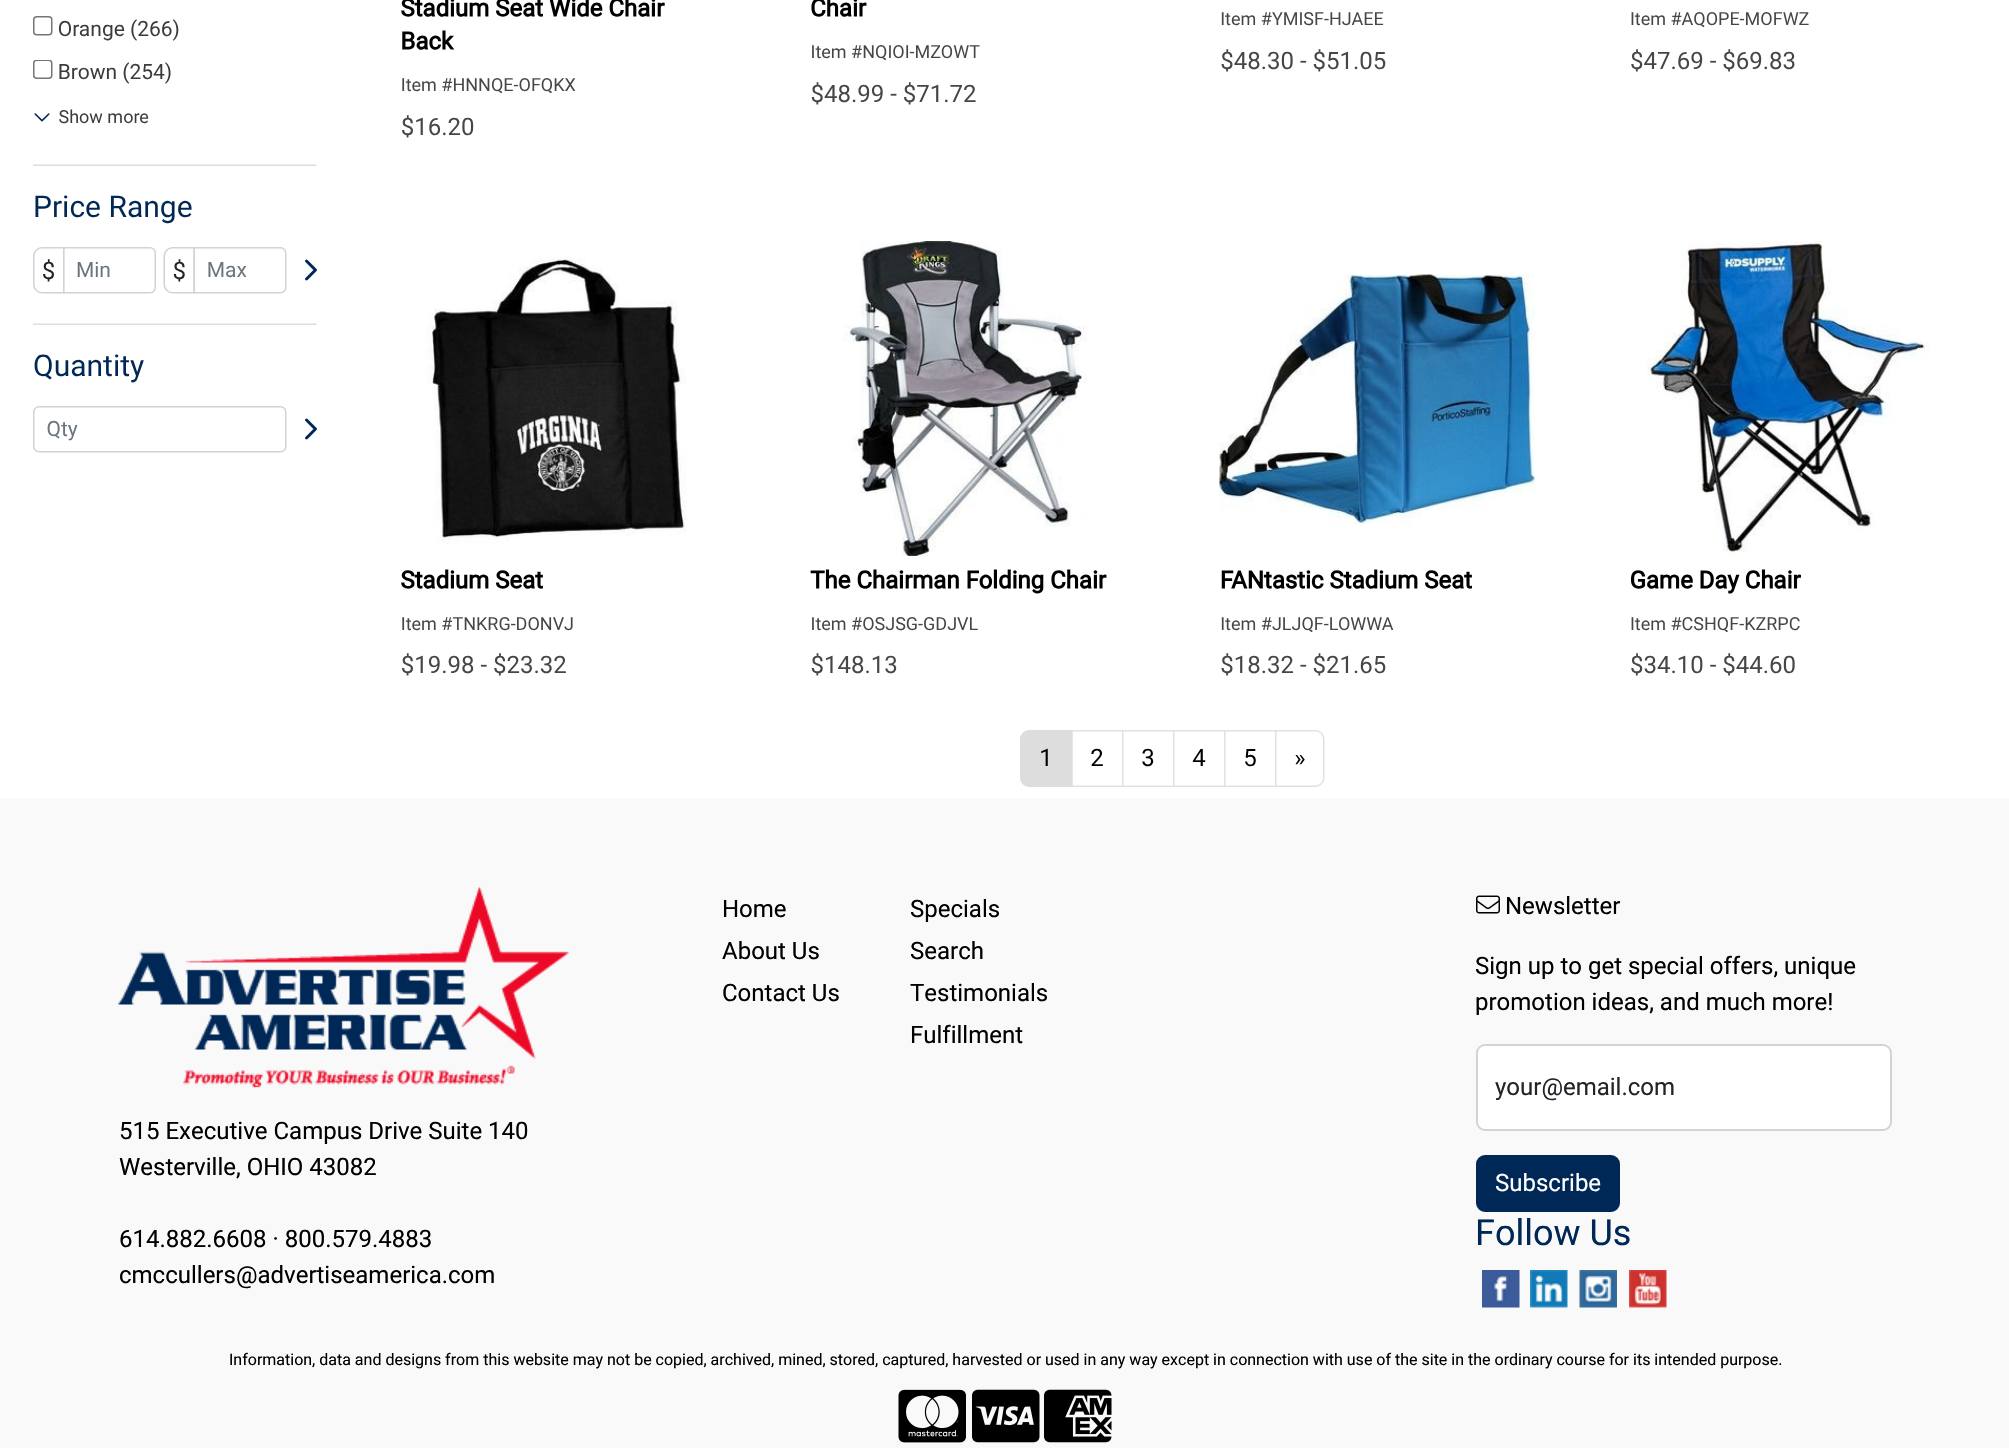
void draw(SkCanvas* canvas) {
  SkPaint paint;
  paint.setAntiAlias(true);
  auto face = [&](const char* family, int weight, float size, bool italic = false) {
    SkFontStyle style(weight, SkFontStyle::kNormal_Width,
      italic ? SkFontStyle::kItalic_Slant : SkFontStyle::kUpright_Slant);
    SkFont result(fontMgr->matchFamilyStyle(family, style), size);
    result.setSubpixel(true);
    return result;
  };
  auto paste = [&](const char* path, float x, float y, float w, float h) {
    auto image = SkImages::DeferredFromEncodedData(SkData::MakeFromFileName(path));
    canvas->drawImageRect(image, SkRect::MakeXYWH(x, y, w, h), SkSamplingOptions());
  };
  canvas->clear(0xffffffff);
  paste("img/1.png", 33, 0, 1897, 787);
  paint.setColor(0xfff9f9f9);
  canvas->drawRect(SkRect::MakeXYWH(0, 798, 2009, 650), paint);
  paste("img/2.png", 1476, 895, 24, 19);
  paint.setColor(0xffffffff);
  canvas->drawRoundRect(SkRect::MakeXYWH(1477, 1045, 414, 85), 8, 8, paint);
  paint.setStroke(true);
  paint.setStrokeWidth(2);
  paint.setColor(0xffced4da);
  canvas->drawRoundRect(SkRect::MakeXYWH(1477, 1045, 414, 85), 8, 8, paint);
  paint.setStroke(false);
  paint.setColor(0xff002857);
  canvas->drawRoundRect(SkRect::MakeXYWH(1477, 1156, 142, 55), 8, 8, paint);
  paint.setStroke(true);
  canvas->drawRoundRect(SkRect::MakeXYWH(1477, 1156, 142, 55), 8, 8, paint);
  paste("img/3.png", 1482, 1270, 38, 38);
  paste("img/4.png", 1530, 1270, 38, 38);
  paste("img/5.png", 1579, 1270, 38, 38);
  paste("img/6.png", 1629, 1270, 38, 38);
  paste("img/7.png", 118, 887, 451, 201);
  paste("img/8.png", 898, 1389, 68, 54);
  paste("img/9.png", 972, 1389, 68, 54);
  paste("img/10.png", 1044, 1389, 68, 54);
  auto f0 = face("Roboto", 400, 24);
  paint.setStroke(false);
  paint.setColor(0xff000000);
  {
    const struct { const char* s; float x, y; } items[] = {
      {"Home", 722, 917},
      {"About Us", 722, 959},
      {"Contact Us", 722, 1001},
      {"Specials", 910, 917},
      {"Search", 910, 959},
      {"Testimonials", 910, 1001},
      {"Fulfillment", 910, 1043},
      {"Newsletter", 1505, 914},
      {"Sign up to get special offers, unique", 1475, 974},
      {"promotion ideas, and much more!", 1475, 1010},
    };
    for (auto [s, x, y] : items) {
      canvas->drawString(s, x, y, f0, paint);
    }
  }
  paint.setColor(0xff212529);
  canvas->drawString("your@email.com", 1495, 1095, f0, paint);
  paint.setColor(0xffffffff);
  canvas->drawString("Subscribe", 1495, 1191, f0, paint);
  auto f1 = face("Roboto", 400, 36);
  paint.setColor(0xff002857);
  canvas->drawString("Follow Us", 1475, 1245, f1, paint);
  paint.setColor(0xff000000);
  {
    const struct { const char* s; float x, y; } items[] = {
      {"515 Executive Campus Drive Suite 140", 119, 1139},
      {"Westerville, OHIO 43082", 119, 1175},
      {"614.882.6608 · 800.579.4883", 119, 1247},
      {"cmccullers@advertiseamerica.com", 119, 1283},
    };
    for (auto [s, x, y] : items) {
      canvas->drawString(s, x, y, f0, paint);
    }
  }
  auto f2 = face("Roboto", 400, 16);
  canvas->drawString("Information, data and designs from this website may not be copied, archived, mined, stored, captured, harvested or used in any way except in connection with use of the site in the ordinary course for its intended purpose.", 229, 1365, f2, paint);
}
